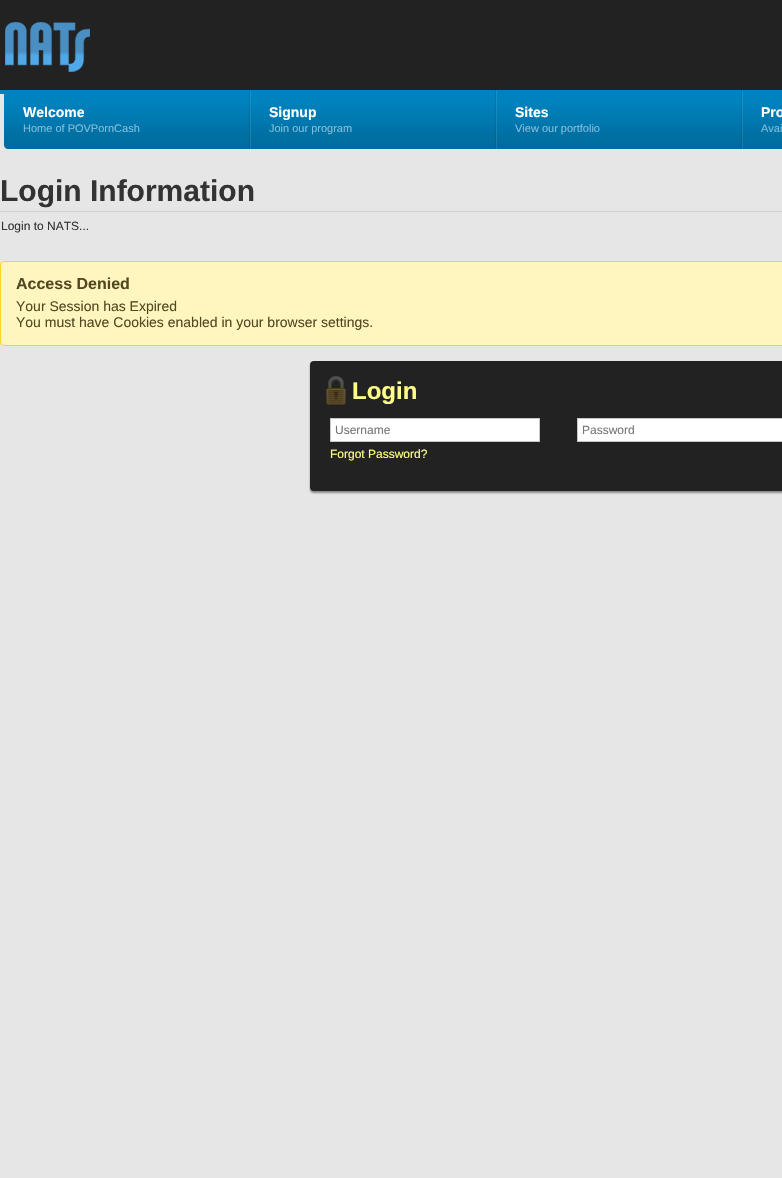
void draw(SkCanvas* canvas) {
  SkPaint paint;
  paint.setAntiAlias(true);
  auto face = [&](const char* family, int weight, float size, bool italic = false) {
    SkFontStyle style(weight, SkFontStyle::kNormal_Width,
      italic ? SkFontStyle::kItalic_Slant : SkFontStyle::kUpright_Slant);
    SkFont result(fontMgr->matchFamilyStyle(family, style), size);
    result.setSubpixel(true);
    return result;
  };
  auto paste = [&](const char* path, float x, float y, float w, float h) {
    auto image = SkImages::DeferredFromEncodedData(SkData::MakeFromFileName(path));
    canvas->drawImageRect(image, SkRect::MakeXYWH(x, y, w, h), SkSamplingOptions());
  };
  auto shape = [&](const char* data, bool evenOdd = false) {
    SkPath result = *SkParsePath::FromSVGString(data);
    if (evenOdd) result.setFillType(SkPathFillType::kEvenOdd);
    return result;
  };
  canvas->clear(0xffe6e6e6);
  paint.setColor(0xff0082be);
  canvas->drawRect(SkRect::MakeXYWH(0, 90, 4, 4), paint);
  paint.setColor(0xff222222);
  canvas->drawRect(SkRect::MakeXYWH(0, 0, 782, 90), paint);
  paste("img/1.png", 5, 22, 85, 50);
  paint.setColor(0xff0082be);
  canvas->drawPath(shape("M4 90H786V145C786 147 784 149 782 149H8C6 149 4 147 4 145Z"), paint);
  paste("img/2.png", 4, 105, 778, 44);
  paste("img/3.png", 249, 90, 2, 59);
  paste("img/3.png", 495, 90, 2, 59);
  paste("img/3.png", 741, 90, 2, 59);
  paint.setColor(0xffd1d1d1);
  canvas->drawRect(SkRect::MakeXYWH(0, 211, 782, 1), paint);
  paint.setColor(0xfffff6bf);
  canvas->drawRoundRect(SkRect::MakeXYWH(0.5f, 261.5f, 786, 84), 3.5f, 3.5f, paint);
  paint.setStroke(true);
  paint.setStrokeWidth(1);
  paint.setColor(0xffffd324);
  canvas->drawRoundRect(SkRect::MakeXYWH(0.5f, 261.5f, 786, 84), 3.5f, 3.5f, paint);
  paint.setStroke(false);
  paint.setColor(0xff888888);
  paint.setMaskFilter(SkMaskFilter::MakeBlur(kNormal_SkBlurStyle, 1));
  canvas->drawRoundRect(SkRect::MakeXYWH(310, 363, 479, 130), 4, 4, paint);
  paint.setMaskFilter(nullptr);
  paint.setColor(0xff222222);
  canvas->drawRoundRect(SkRect::MakeXYWH(310, 361, 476, 130), 4, 4, paint);
  paste("img/4.png", 326, 376, 20, 29);
  paint.setColor(0xffffffff);
  canvas->drawRect(SkRect::MakeXYWH(330.5f, 418.5f, 209, 23), paint);
  paint.setStroke(true);
  paint.setColor(0xffc7c7c7);
  canvas->drawRect(SkRect::MakeXYWH(330.5f, 418.5f, 209, 23), paint);
  paint.setStroke(false);
  paint.setColor(0xffffffff);
  canvas->drawRect(SkRect::MakeXYWH(577.5f, 418.5f, 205, 23), paint);
  paint.setStroke(true);
  paint.setColor(0xffc7c7c7);
  canvas->drawRect(SkRect::MakeXYWH(577.5f, 418.5f, 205, 23), paint);
  auto f0 = face("Liberation Sans", 700, 14);
  paint.setStroke(false);
  paint.setColor(0xffffffff);
  canvas->drawString("Welcome", 23, 117, f0, paint);
  auto f1 = face("Liberation Sans", 400, 11);
  paint.setColor(0xff82beda);
  canvas->drawString("Home of POVPornCash", 23, 132, f1, paint);
  paint.setColor(0xffffffff);
  canvas->drawString("Signup", 269, 117, f0, paint);
  paint.setColor(0xff82beda);
  canvas->drawString("Join our program", 269, 132, f1, paint);
  paint.setColor(0xffffffff);
  canvas->drawString("Sites", 515, 117, f0, paint);
  paint.setColor(0xff82beda);
  canvas->drawString("View our portfolio", 515, 132, f1, paint);
  paint.setColor(0xffffffff);
  canvas->drawString("Pro", 761, 117, f0, paint);
  paint.setColor(0xff82beda);
  canvas->drawString("Avai", 761, 132, f1, paint);
  auto f2 = face("Liberation Sans", 700, 30);
  paint.setColor(0xff333333);
  canvas->drawString("Login Information", 0, 201, f2, paint);
  auto f3 = face("Liberation Sans", 400, 12);
  canvas->drawString("Login to NATS...", 1, 230, f3, paint);
  auto f4 = face("Liberation Sans", 700, 16);
  paint.setColor(0xff514721);
  canvas->drawString("Access Denied", 16, 289, f4, paint);
  auto f5 = face("Liberation Sans", 400, 14);
  canvas->drawString("Your Session has Expired", 16, 311, f5, paint);
  canvas->drawString("You must have Cookies enabled in your browser settings.", 16, 327, f5, paint);
  auto f6 = face("Liberation Sans", 700, 24);
  paint.setColor(0xffffff87);
  canvas->drawString("Login", 352, 399, f6, paint);
  paint.setColor(0xff757575);
  canvas->drawString("Username", 335, 434, f3, paint);
  canvas->drawString("Password", 582, 434, f3, paint);
  paint.setColor(0xffffff87);
  canvas->drawString("Forgot Password?", 330, 458, f3, paint);
}
